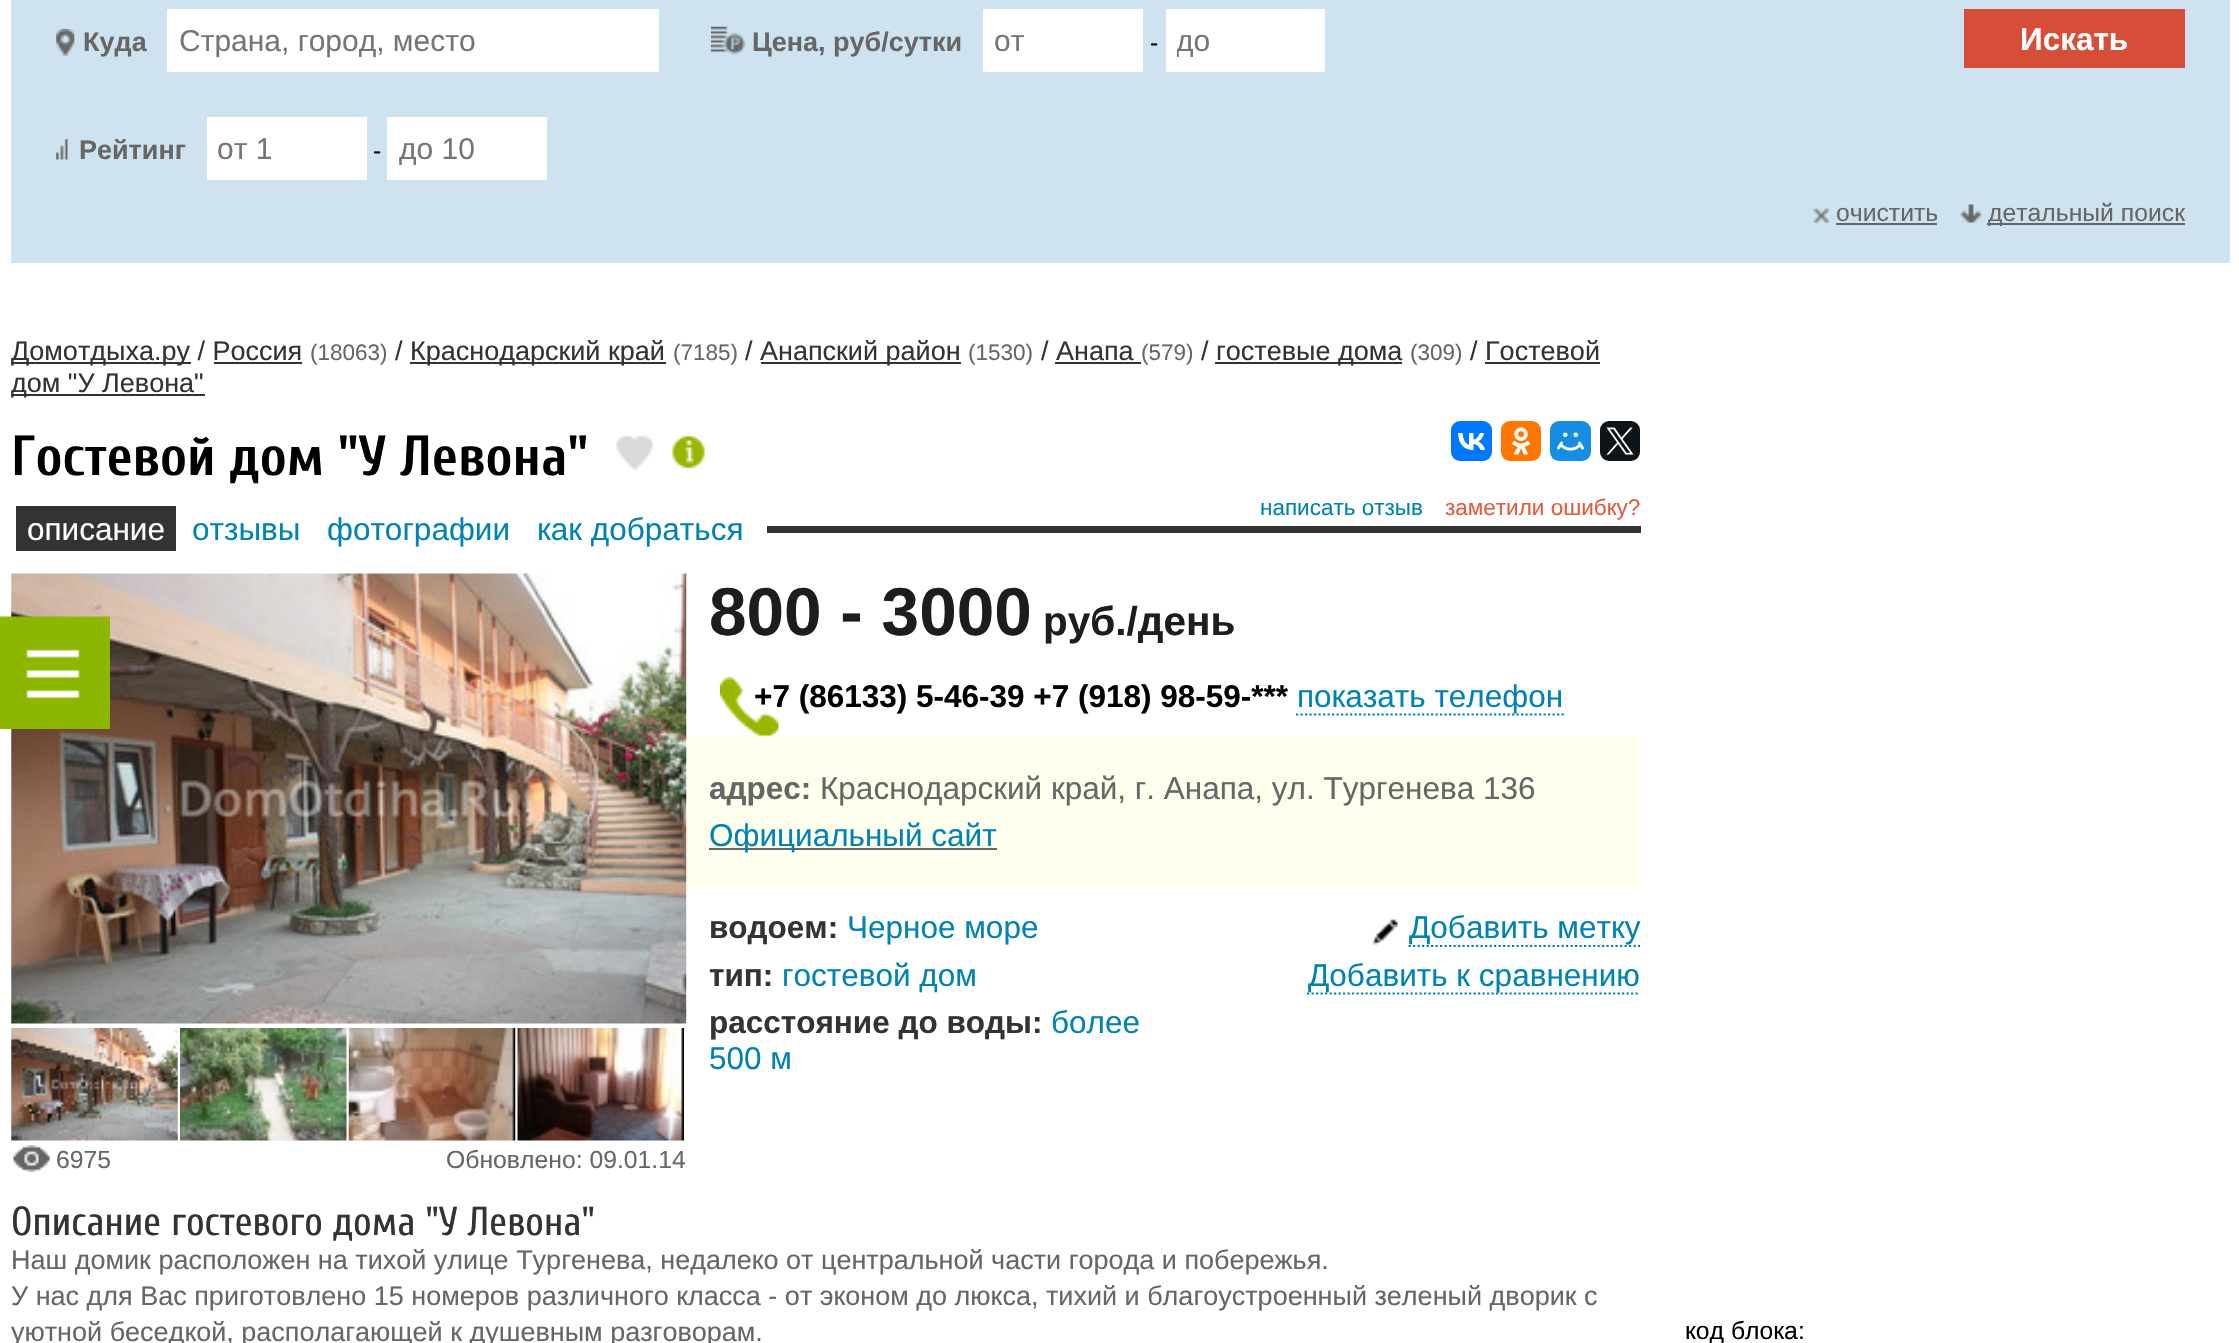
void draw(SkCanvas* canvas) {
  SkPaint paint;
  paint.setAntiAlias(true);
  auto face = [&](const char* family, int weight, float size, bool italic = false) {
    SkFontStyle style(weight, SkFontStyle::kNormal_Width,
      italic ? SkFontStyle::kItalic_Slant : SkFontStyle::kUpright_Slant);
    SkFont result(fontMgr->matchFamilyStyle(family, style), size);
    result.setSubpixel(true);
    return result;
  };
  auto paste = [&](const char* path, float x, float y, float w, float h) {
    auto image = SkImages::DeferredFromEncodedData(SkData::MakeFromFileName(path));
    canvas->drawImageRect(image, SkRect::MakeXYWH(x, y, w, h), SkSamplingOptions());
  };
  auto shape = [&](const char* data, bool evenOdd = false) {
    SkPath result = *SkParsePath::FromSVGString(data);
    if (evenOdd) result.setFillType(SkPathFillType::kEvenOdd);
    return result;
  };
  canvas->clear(0xffffffff);
  paint.setColor(0xffcee3ef);
  canvas->drawRect(SkRect::MakeXYWH(11, 0, 2219, 263), paint);
  paste("img/1.png", 56, 29, 19, 27);
  paint.setColor(0xffffffff);
  canvas->drawRect(SkRect::MakeXYWH(167, 9, 492, 63), paint);
  paste("img/2.png", 711, 26, 36, 30);
  {
    const struct { float x, y, w, h; SkColor color; } items[] = {
      {983, 9, 160, 63, 0xffffffff},
      {1166, 9, 159, 63, 0xffffffff},
      {1964, 9, 221, 59, 0xffd64e38},
    };
    for (auto [x, y, w, h, color] : items) {
      paint.setColor(color);
      canvas->drawRect(SkRect::MakeXYWH(x, y, w, h), paint);
    }
  }
  paste("img/3.png", 56, 139, 12, 21);
  paint.setColor(0xffffffff);
  canvas->drawRect(SkRect::MakeXYWH(207, 117, 160, 63), paint);
  canvas->drawRect(SkRect::MakeXYWH(387, 117, 160, 63), paint);
  paste("img/4.png", 1813, 208, 17, 16);
  paint.setColor(0xff666666);
  canvas->drawRect(SkRect::MakeXYWH(1836, 223, 101, 2), paint);
  paste("img/5.png", 1959, 204, 24, 19);
  {
    const struct { float x, y, w, h; SkColor color; } items[] = {
      {1987, 223, 198, 2, 0xff666666},
      {11, 362, 180, 2, 0xff333333},
      {410, 362, 256, 2, 0xff333333},
      {761, 362, 200, 2, 0xff333333},
      {1215, 362, 187, 2, 0xff333333},
      {214, 362, 88, 2, 0xff333333},
      {1055, 362, 86, 2, 0xff333333},
      {1485, 362, 115, 2, 0xff333333},
      {11, 394, 194, 2, 0xff333333},
    };
    for (auto [x, y, w, h, color] : items) {
      paint.setColor(color);
      canvas->drawRect(SkRect::MakeXYWH(x, y, w, h), paint);
    }
  }
  paste("img/6.png", 616, 435, 37, 36);
  paste("img/7.png", 672, 435, 33, 34);
  paint.setColor(0xff0077ff);
  canvas->drawRoundRect(SkRect::MakeXYWH(1451, 421, 41, 40), 9, 9, paint);
  paste("img/8.png", 1458, 433, 27, 17);
  paint.setColor(0xffff7700);
  canvas->drawRoundRect(SkRect::MakeXYWH(1501, 421, 40, 40), 9, 9, paint);
  paste("img/9.png", 1512, 427, 19, 28);
  paint.setColor(0xff168de2);
  canvas->drawRoundRect(SkRect::MakeXYWH(1550, 421, 41, 40), 9, 9, paint);
  paste("img/10.png", 1557, 432, 27, 19);
  paint.setColor(0xff0f1419);
  canvas->drawRoundRect(SkRect::MakeXYWH(1600, 421, 40, 40), 9, 9, paint);
  paste("img/11.png", 1606, 427, 28, 28);
  paint.setColor(0xff333333);
  canvas->drawRect(SkRect::MakeXYWH(767, 526, 874, 7), paint);
  canvas->drawRect(SkRect::MakeXYWH(16, 506, 160, 45), paint);
  paste("img/12.png", 720, 677, 59, 59);
  paint.setStroke(true);
  paint.setStrokeWidth(2.2f);
  paint.setColor(0xff0083b4);
  paint.setPathEffect(SkDashPathEffect::Make({{2.25f, 2.25f}}, 0));
  canvas->drawPath(shape("M1296 714.5H1564"), paint);
  paint.setPathEffect(nullptr);
  paint.setStroke(false);
  paint.setColor(0xffffffee);
  canvas->drawRect(SkRect::MakeXYWH(686, 736, 954, 151), paint);
  paint.setColor(0xff666666);
  canvas->drawRect(SkRect::MakeXYWH(709, 848, 288, 2), paint);
  paste("img/13.png", 1372, 919, 26, 27);
  paint.setStroke(true);
  paint.setColor(0xff0083b4);
  paint.setPathEffect(SkDashPathEffect::Make({{2.25f, 2.25f}}, 0));
  canvas->drawPath(shape("M1408.5 946H1640"), paint);
  paint.setPathEffect(nullptr);
  paint.setPathEffect(SkDashPathEffect::Make({{2.25f, 2.25f}}, 0));
  canvas->drawPath(shape("M1307 993.5H1640"), paint);
  paint.setPathEffect(nullptr);
  paste("img/14.png", 11, 573, 676, 451);
  paste("img/15.png", 11, 1028, 167, 113);
  paste("img/16.png", 180, 1028, 167, 113);
  paste("img/17.png", 348, 1028, 168, 113);
  paste("img/18.png", 517, 1028, 167, 113);
  paste("img/19.png", 13, 1145, 38, 27);
  paste("img/20.png", 0, 616, 110, 113);
  auto f0 = face("Liberation Sans", 700, 27);
  paint.setStroke(false);
  paint.setColor(0xff666666);
  canvas->drawString("Куда", 83, 51, f0, paint);
  auto f1 = face("Liberation Sans", 400, 30);
  paint.setColor(0xff757575);
  canvas->drawString("Страна, город, место", 179, 51, f1, paint);
  paint.setColor(0xff666666);
  canvas->drawString("Цена, руб/сутки", 752, 51, f0, paint);
  paint.setColor(0xff757575);
  canvas->drawString("от", 994, 51, f1, paint);
  auto f2 = face("Liberation Sans", 400, 24.75f);
  paint.setColor(0xff000000);
  canvas->drawString("-", 1150, 51, f2, paint);
  canvas->save();
  canvas->clipRect(SkRect::MakeXYWH(1177, 25, 144, 34));
  paint.setColor(0xff757575);
  canvas->drawString("до", 1176, 51, f1, paint);
  canvas->restore();
  auto f3 = face("Liberation Sans", 700, 31.5f);
  paint.setColor(0xffffffff);
  canvas->drawString("Искать", 2020, 50, f3, paint);
  paint.setColor(0xff666666);
  canvas->drawString("Рейтинг", 79, 159, f0, paint);
  paint.setColor(0xff757575);
  canvas->drawString("от 1", 217, 159, f1, paint);
  paint.setColor(0xff000000);
  canvas->drawString("-", 373, 159, f2, paint);
  paint.setColor(0xff757575);
  canvas->drawString("до 10", 399, 159, f1, paint);
  paint.setColor(0xff666666);
  canvas->drawString("очистить", 1836, 221, f2, paint);
  canvas->drawString("детальный поиск", 1988, 221, f2, paint);
  auto f4 = face("Liberation Sans", 400, 27);
  paint.setColor(0xff333333);
  canvas->drawString("Домотдыха.ру / Россия", 11, 360, f4, paint);
  auto f5 = face("Liberation Sans", 400, 22.5f);
  paint.setColor(0xff666666);
  canvas->drawString("(18063)", 310, 360, f5, paint);
  paint.setColor(0xff333333);
  canvas->drawString("/", 395, 360, f4, paint);
  canvas->drawString("Краснодарский край", 410, 360, f4, paint);
  paint.setColor(0xff666666);
  canvas->drawString("(7185)", 673, 360, f5, paint);
  paint.setColor(0xff333333);
  canvas->drawString("/", 745, 360, f4, paint);
  canvas->drawString("Анапский район", 760, 360, f4, paint);
  paint.setColor(0xff666666);
  canvas->drawString("(1530)", 968, 360, f5, paint);
  paint.setColor(0xff333333);
  canvas->drawString("/ Анапа", 1041, 360, f4, paint);
  paint.setColor(0xff666666);
  canvas->drawString("(579)", 1141, 360, f5, paint);
  paint.setColor(0xff333333);
  canvas->drawString("/", 1201, 360, f4, paint);
  canvas->drawString("гостевые дома", 1216, 360, f4, paint);
  paint.setColor(0xff666666);
  canvas->drawString("(309)", 1410, 360, f5, paint);
  paint.setColor(0xff333333);
  canvas->drawString("/ Гостевой", 1470, 360, f4, paint);
  canvas->drawString("дом \"У Левона\"", 11, 392, f4, paint);
  auto f6 = face("Cuprum", 700, 56.25f);
  paint.setColor(0xff000000);
  canvas->drawString("Гостевой дом \"У Левона\"", 11, 475, f6, paint);
  paint.setColor(0xff0083b4);
  canvas->drawString("написать отзыв", 1260, 515, f5, paint);
  paint.setColor(0xffe45a3a);
  canvas->drawString("заметили ошибку?", 1445, 515, f5, paint);
  auto f7 = face("Liberation Sans", 400, 31.5f);
  paint.setColor(0xffffffff);
  canvas->drawString("описание", 27, 540, f7, paint);
  paint.setColor(0xff0083b4);
  {
    const struct { const char* s; float x, y; } items[] = {
      {"отзывы", 192, 540},
      {"фотографии", 327, 540},
      {"как добраться", 537, 540},
    };
    for (auto [s, x, y] : items) {
      canvas->drawString(s, x, y, f7, paint);
    }
  }
  auto f8 = face("Liberation Sans", 700, 67.5f);
  paint.setColor(0xff1d1d1d);
  canvas->drawString("800 - 3000", 709, 635, f8, paint);
  auto f9 = face("Liberation Sans", 700, 40.5f);
  canvas->drawString("руб./день", 1043, 635, f9, paint);
  paint.setColor(0xff000000);
  canvas->drawString("+7 (86133) 5-46-39 +7 (918) 98-59-***", 754, 707, f3, paint);
  paint.setColor(0xff0083b4);
  canvas->drawString("показать телефон", 1297, 707, f7, paint);
  paint.setColor(0xff666666);
  canvas->drawString("адрес:", 709, 799, f3, paint);
  canvas->drawString("Краснодарский край, г. Анапа, ул. Тургенева 136", 820, 799, f7, paint);
  paint.setColor(0xff0083b4);
  canvas->drawString("Официальный сайт", 709, 846, f7, paint);
  paint.setColor(0xff333333);
  canvas->drawString("водоем:", 709, 938, f3, paint);
  paint.setColor(0xff0083b4);
  canvas->drawString("Черное море", 847, 938, f7, paint);
  paint.setColor(0xff333333);
  canvas->drawString("тип:", 709, 986, f3, paint);
  paint.setColor(0xff0083b4);
  canvas->drawString("гостевой дом", 782, 986, f7, paint);
  paint.setColor(0xff333333);
  canvas->drawString("расстояние до воды:", 709, 1033, f3, paint);
  paint.setColor(0xff0083b4);
  {
    const struct { const char* s; float x, y; } items[] = {
      {"более", 1051, 1033},
      {"500 м", 709, 1069},
      {"Добавить метку", 1409, 938},
      {"Добавить к сравнению", 1308, 986},
    };
    for (auto [s, x, y] : items) {
      canvas->drawString(s, x, y, f7, paint);
    }
  }
  paint.setColor(0xff666666);
  canvas->drawString("6975", 56, 1168, f2, paint);
  canvas->drawString("Обновлено: 09.01.14", 446, 1168, f2, paint);
  auto f10 = face("Cuprum", 400, 40.5f);
  paint.setColor(0xff333333);
  canvas->drawString("Описание гостевого дома \"У Левона\"", 11, 1235, f10, paint);
  paint.setColor(0xff666666);
  {
    const struct { const char* s; float x, y; } items[] = {
      {"Наш домик расположен на тихой улице Тургенева, недалеко от центральной части города и побережья.", 11, 1269},
      {"У нас для Вас приготовлено 15 номеров различного класса - от эконом до люкса, тихий и благоустроенный зеленый дворик с", 11, 1305},
      {"уютной беседкой, располагающей к душевным разговорам.", 11, 1341},
    };
    for (auto [s, x, y] : items) {
      canvas->drawString(s, x, y, f4, paint);
    }
  }
  paint.setColor(0xff000000);
  canvas->drawString("код блока:", 1685, 1339, f2, paint);
}
